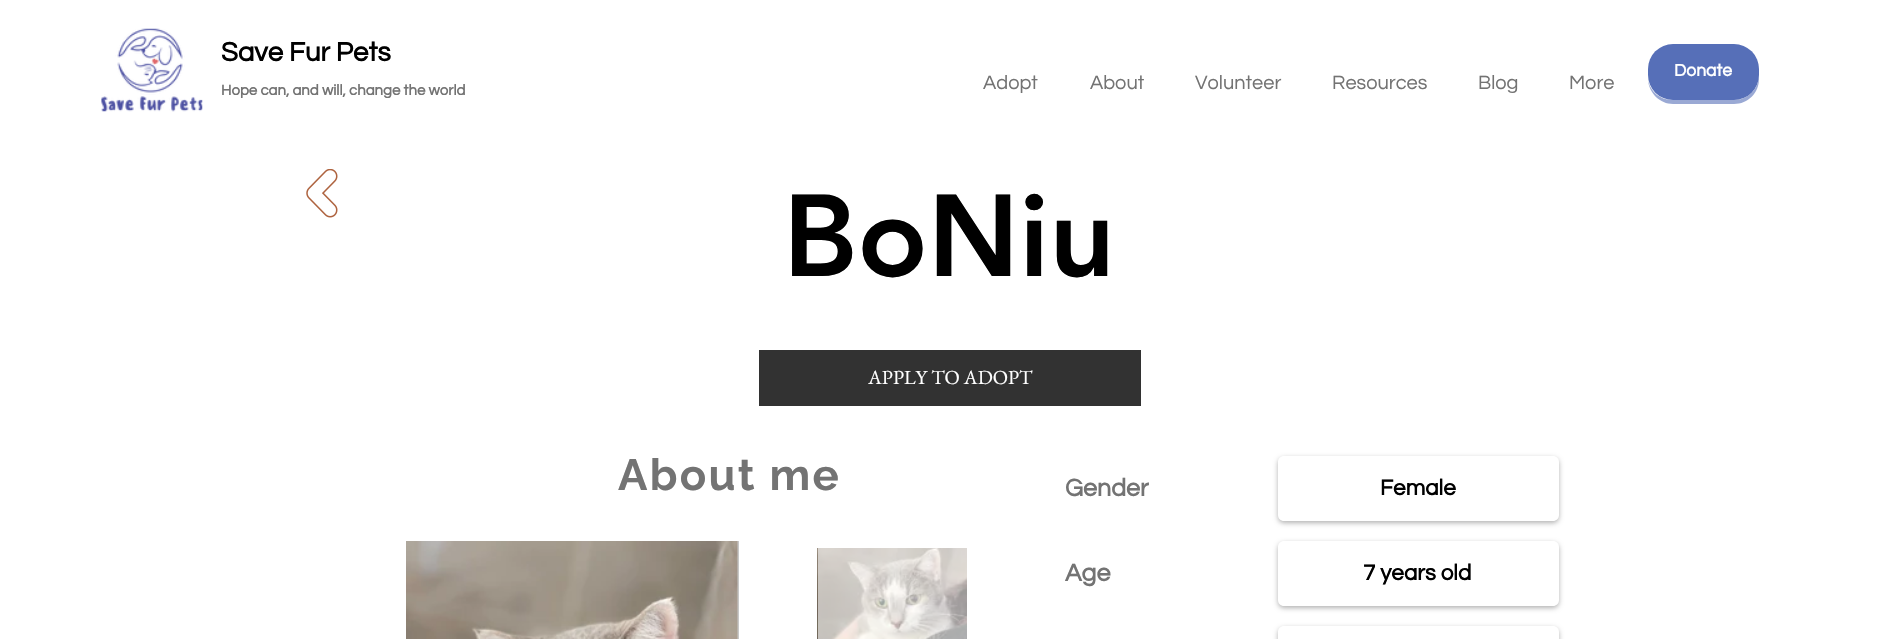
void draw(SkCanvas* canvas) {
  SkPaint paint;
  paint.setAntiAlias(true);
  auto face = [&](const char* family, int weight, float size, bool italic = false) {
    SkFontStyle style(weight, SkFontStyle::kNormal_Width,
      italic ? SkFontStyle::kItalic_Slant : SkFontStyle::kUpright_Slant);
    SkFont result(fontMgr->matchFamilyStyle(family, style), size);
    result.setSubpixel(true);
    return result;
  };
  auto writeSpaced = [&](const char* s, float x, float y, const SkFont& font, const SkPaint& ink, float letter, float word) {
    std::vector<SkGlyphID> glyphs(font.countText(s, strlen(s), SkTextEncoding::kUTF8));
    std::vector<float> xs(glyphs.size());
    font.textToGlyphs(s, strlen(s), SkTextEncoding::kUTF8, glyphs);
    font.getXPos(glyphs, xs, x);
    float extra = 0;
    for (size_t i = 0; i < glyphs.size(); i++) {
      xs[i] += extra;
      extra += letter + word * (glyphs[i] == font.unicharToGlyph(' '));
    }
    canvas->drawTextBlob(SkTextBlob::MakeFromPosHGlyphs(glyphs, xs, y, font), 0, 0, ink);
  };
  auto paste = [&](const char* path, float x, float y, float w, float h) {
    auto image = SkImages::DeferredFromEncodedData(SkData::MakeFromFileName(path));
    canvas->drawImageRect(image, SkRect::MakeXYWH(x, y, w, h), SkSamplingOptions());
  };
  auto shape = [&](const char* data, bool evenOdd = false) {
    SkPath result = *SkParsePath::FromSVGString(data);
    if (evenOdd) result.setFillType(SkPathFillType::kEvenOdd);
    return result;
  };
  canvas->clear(0xffffffff);
  paste("img/1.png", 101, 28, 102, 84);
  paint.setColor(0xff9aa9d4);
  canvas->drawPath(shape("M1648 80C1649 93 1660 104 1673 104H1734C1748 104 1759 93 1759 79V69V75C1759 89 1748 100 1734 100H1672C1660 100 1650 91 1648 80Z"), paint);
  paint.setColor(0xff566fb8);
  canvas->drawRoundRect(SkRect::MakeXYWH(1648, 44, 111, 56), 25, 25, paint);
  paste("img/2.png", 306, 169, 32, 49);
  paint.setColor(0xff323232);
  canvas->drawRect(SkRect::MakeXYWH(759, 350, 382, 56), paint);
  canvas->save();
  canvas->clipPath(shape("M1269 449H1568V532H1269ZM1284 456H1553C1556.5 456 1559 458.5 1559 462V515C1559 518.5 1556.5 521 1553 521H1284C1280.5 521 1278 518.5 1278 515V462C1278 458.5 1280.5 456 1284 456Z", true), true);
  paint.setColor(0x4d000000);
  paint.setMaskFilter(SkMaskFilter::MakeBlur(kNormal_SkBlurStyle, 2.5f));
  canvas->drawRoundRect(SkRect::MakeXYWH(1278, 458, 281, 65), 6, 6, paint);
  paint.setMaskFilter(nullptr);
  canvas->restore();
  paint.setColor(0xffc7c7c7);
  canvas->drawRect(SkRect::MakeXYWH(737, 541, 2, 98), paint);
  paste("img/3.png", 406, 541, 332, 98);
  paste("img/4.png", 817, 548, 150, 91);
  canvas->save();
  canvas->clipPath(shape("M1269 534H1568V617H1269ZM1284 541H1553C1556.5 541 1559 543.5 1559 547V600C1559 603.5 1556.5 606 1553 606H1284C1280.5 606 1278 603.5 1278 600V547C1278 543.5 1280.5 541 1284 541Z", true), true);
  paint.setColor(0x4d000000);
  paint.setMaskFilter(SkMaskFilter::MakeBlur(kNormal_SkBlurStyle, 2.5f));
  canvas->drawRoundRect(SkRect::MakeXYWH(1278, 543, 281, 65), 6, 6, paint);
  paint.setMaskFilter(nullptr);
  canvas->restore();
  canvas->save();
  canvas->clipPath(shape("M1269 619H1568V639H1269ZM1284 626H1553C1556.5 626 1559 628.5 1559 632V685C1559 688.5 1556.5 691 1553 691H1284C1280.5 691 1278 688.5 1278 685V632C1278 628.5 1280.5 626 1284 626Z", true), true);
  paint.setMaskFilter(SkMaskFilter::MakeBlur(kNormal_SkBlurStyle, 2.5f));
  canvas->drawRoundRect(SkRect::MakeXYWH(1278, 628, 281, 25), 6, 6, paint);
  paint.setMaskFilter(nullptr);
  canvas->restore();
  auto f0 = face("Questrial", 700, 27.5f);
  paint.setColor(0xff000000);
  canvas->drawString("Save Fur Pets", 221, 61, f0, paint);
  auto f1 = face("Questrial", 700, 15);
  paint.setColor(0xff737373);
  canvas->drawString("Hope can, and will, change the world", 221, 95, f1, paint);
  auto f2 = face("Questrial", 700, 17.5f);
  paint.setColor(0xffffffff);
  canvas->drawString("Donate", 1674, 76, f2, paint);
  auto f3 = face("Questrial", 400, 20);
  paint.setColor(0xff737373);
  {
    const struct { const char* s; float x, y; } items[] = {
      {"Adopt", 983, 89},
      {"About", 1090, 89},
      {"Volunteer", 1195, 89},
      {"Resources", 1332, 89},
      {"Blog", 1478, 89},
      {"More", 1569, 89},
    };
    for (auto [s, x, y] : items) {
      canvas->drawString(s, x, y, f3, paint);
    }
  }
  auto f4 = face("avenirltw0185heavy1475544", 900, 115);
  paint.setColor(0xff000000);
  canvas->drawString("BoNiu", 783, 276, f4, paint);
  auto f5 = face("EB Garamond", 400, 20);
  paint.setColor(0xffffffff);
  canvas->drawString("APPLY TO ADOPT", 868, 384, f5, paint);
  auto f6 = face("Raleway", 700, 43.75f);
  paint.setColor(0xff737373);
  writeSpaced("About me", 618, 490, f6, paint, 2.25f, 0);
  auto f7 = face("Questrial", 700, 25);
  canvas->drawString("Gender", 1065, 496, f7, paint);
  auto f8 = face("Questrial", 700, 22.5f);
  paint.setColor(0xff000000);
  canvas->drawString("Female", 1380, 495, f8, paint);
  paint.setColor(0xff737373);
  canvas->drawString("Age", 1065, 581, f7, paint);
  paint.setColor(0xff000000);
  canvas->drawString("7 years old", 1363, 580, f8, paint);
}
